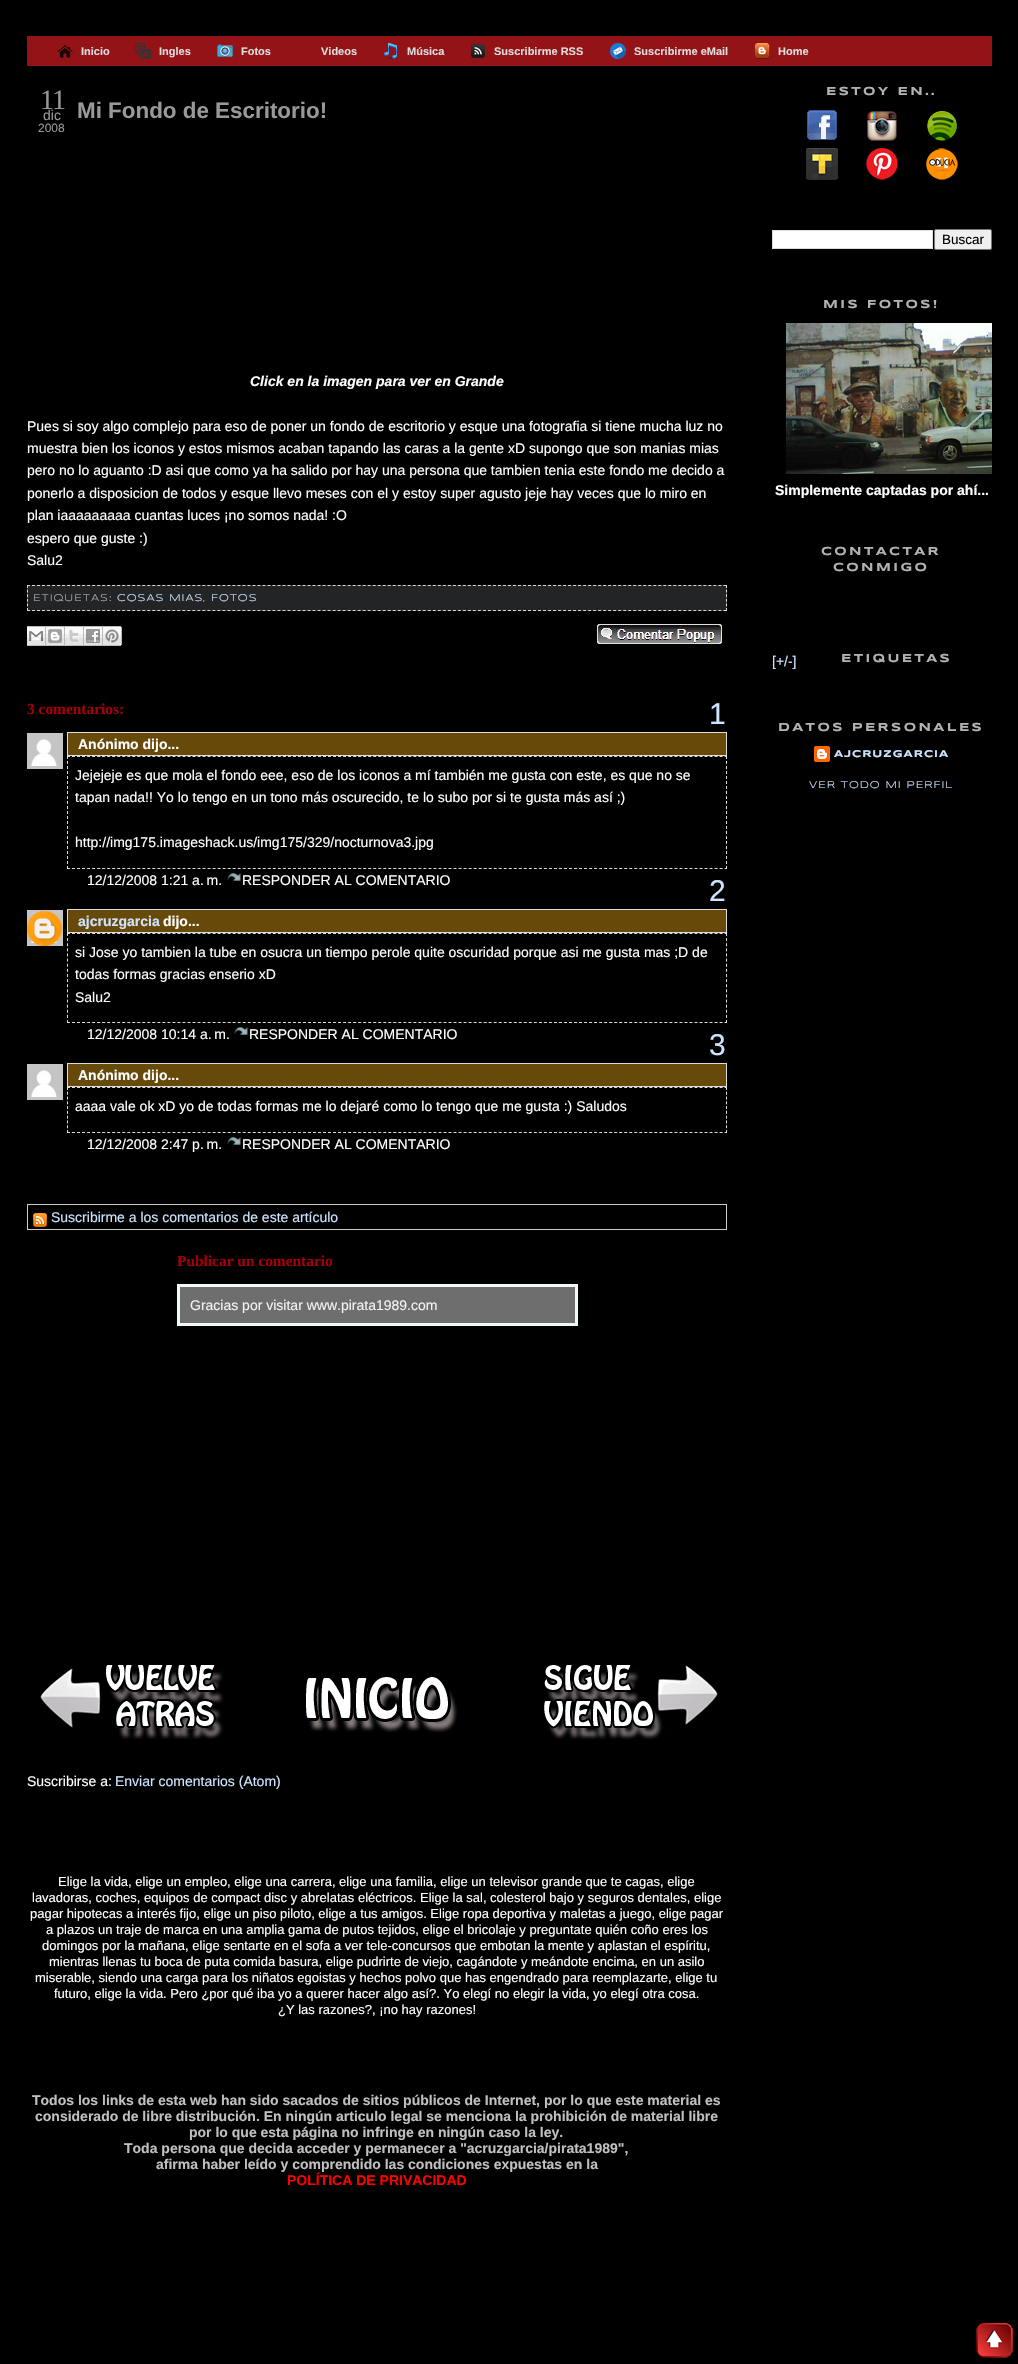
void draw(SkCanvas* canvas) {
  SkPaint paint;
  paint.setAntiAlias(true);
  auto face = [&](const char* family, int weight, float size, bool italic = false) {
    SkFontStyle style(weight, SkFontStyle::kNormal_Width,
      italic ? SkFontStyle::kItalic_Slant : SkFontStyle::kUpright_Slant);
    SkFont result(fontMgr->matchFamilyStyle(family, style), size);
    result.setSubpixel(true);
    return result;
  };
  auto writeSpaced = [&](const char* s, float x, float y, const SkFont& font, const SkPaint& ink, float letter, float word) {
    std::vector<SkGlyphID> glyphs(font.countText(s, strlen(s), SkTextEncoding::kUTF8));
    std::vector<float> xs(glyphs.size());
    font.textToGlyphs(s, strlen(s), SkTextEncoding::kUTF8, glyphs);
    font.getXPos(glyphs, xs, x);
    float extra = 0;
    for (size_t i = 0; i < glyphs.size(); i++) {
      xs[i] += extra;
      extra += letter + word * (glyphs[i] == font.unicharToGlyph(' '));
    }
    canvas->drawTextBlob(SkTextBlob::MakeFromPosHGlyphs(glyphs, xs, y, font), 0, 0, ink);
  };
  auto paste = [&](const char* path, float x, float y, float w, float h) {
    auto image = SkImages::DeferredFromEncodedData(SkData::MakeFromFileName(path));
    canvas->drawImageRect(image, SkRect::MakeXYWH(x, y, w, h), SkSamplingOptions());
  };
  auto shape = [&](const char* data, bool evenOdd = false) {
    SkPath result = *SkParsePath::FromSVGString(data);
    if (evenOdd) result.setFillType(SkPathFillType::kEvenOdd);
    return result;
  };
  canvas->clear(0xff000000);
  paint.setColor(0xff931317);
  canvas->drawRect(SkRect::MakeXYWH(27, 36, 965, 30), paint);
  paste("img/1.png", 57, 45, 16, 13);
  paste("img/2.png", 135, 43, 16, 16);
  paste("img/3.png", 217, 44, 16, 13);
  paste("img/4.png", 384, 43, 14, 16);
  paste("img/5.png", 471, 44, 14, 14);
  paste("img/6.png", 610, 43, 16, 16);
  paste("img/7.png", 754, 43, 16, 16);
  paint.setColor(0xff232425);
  canvas->drawRect(SkRect::MakeXYWH(27, 585, 700, 26), paint);
  paint.setStroke(true);
  paint.setStrokeWidth(1);
  paint.setColor(0xffd7d9da);
  paint.setPathEffect(SkDashPathEffect::Make({{3, 2.01f}}, 0));
  canvas->drawPath(shape("M27 585.5H727"), paint);
  paint.setPathEffect(nullptr);
  paint.setPathEffect(SkDashPathEffect::Make({{3, 1.6f}}, 0));
  canvas->drawPath(shape("M726.5 585V611"), paint);
  paint.setPathEffect(nullptr);
  paint.setPathEffect(SkDashPathEffect::Make({{3, 2.01f}}, 0));
  canvas->drawPath(shape("M27 610.5H727"), paint);
  paint.setPathEffect(nullptr);
  paint.setPathEffect(SkDashPathEffect::Make({{3, 1.6f}}, 0));
  canvas->drawPath(shape("M27.5 585V611"), paint);
  paint.setPathEffect(nullptr);
  paste("img/8.png", 27, 626, 19, 20);
  paste("img/9.png", 46, 626, 19, 20);
  paste("img/10.png", 65, 626, 19, 20);
  paste("img/11.png", 84, 626, 19, 20);
  paste("img/12.png", 103, 626, 19, 20);
  paste("img/13.png", 597, 624, 125, 20);
  paint.setStroke(false);
  paint.setColor(0xff67490a);
  canvas->drawRect(SkRect::MakeXYWH(67.5f, 732.5f, 659, 23), paint);
  paint.setStroke(true);
  paint.setColor(0xffdddddd);
  canvas->drawRect(SkRect::MakeXYWH(67.5f, 732.5f, 659, 23), paint);
  paste("img/14.png", 27, 733, 36, 36);
  paint.setPathEffect(SkDashPathEffect::Make({{3, 2.02f}}, 0));
  canvas->drawPath(shape("M67 756.5H727"), paint);
  paint.setPathEffect(nullptr);
  paint.setPathEffect(SkDashPathEffect::Make({{3, 2}}, 0));
  canvas->drawPath(shape("M726.5 756V869"), paint);
  paint.setPathEffect(nullptr);
  paint.setPathEffect(SkDashPathEffect::Make({{3, 2.02f}}, 0));
  canvas->drawPath(shape("M67 868.5H727"), paint);
  paint.setPathEffect(nullptr);
  paint.setPathEffect(SkDashPathEffect::Make({{3, 2}}, 0));
  canvas->drawPath(shape("M67.5 756V869"), paint);
  paint.setPathEffect(nullptr);
  paste("img/15.png", 227, 873, 14, 8);
  paint.setStroke(false);
  paint.setColor(0xff67490a);
  canvas->drawRect(SkRect::MakeXYWH(67.5f, 909.5f, 659, 23), paint);
  paint.setStroke(true);
  paint.setColor(0xffdddddd);
  canvas->drawRect(SkRect::MakeXYWH(67.5f, 909.5f, 659, 23), paint);
  paste("img/14.png", 27, 910, 36, 36);
  paste("img/16.png", 27, 911, 35, 35);
  paste("img/17.png", 27, 911, 35, 35);
  paint.setPathEffect(SkDashPathEffect::Make({{3, 2.02f}}, 0));
  canvas->drawPath(shape("M67 933.5H727"), paint);
  paint.setPathEffect(nullptr);
  paint.setPathEffect(SkDashPathEffect::Make({{3, 2.12f}}, 0));
  canvas->drawPath(shape("M726.5 933V1023"), paint);
  paint.setPathEffect(nullptr);
  paint.setPathEffect(SkDashPathEffect::Make({{3, 2.02f}}, 0));
  canvas->drawPath(shape("M67 1022.5H727"), paint);
  paint.setPathEffect(nullptr);
  paint.setPathEffect(SkDashPathEffect::Make({{3, 2.12f}}, 0));
  canvas->drawPath(shape("M67.5 933V1023"), paint);
  paint.setPathEffect(nullptr);
  paste("img/15.png", 234, 1027, 14, 8);
  paint.setStroke(false);
  paint.setColor(0xff67490a);
  canvas->drawRect(SkRect::MakeXYWH(67.5f, 1063.5f, 659, 23), paint);
  paint.setStroke(true);
  paint.setColor(0xffdddddd);
  canvas->drawRect(SkRect::MakeXYWH(67.5f, 1063.5f, 659, 23), paint);
  paste("img/14.png", 27, 1064, 36, 36);
  paint.setPathEffect(SkDashPathEffect::Make({{3, 2.02f}}, 0));
  canvas->drawPath(shape("M67 1087.5H727"), paint);
  paint.setPathEffect(nullptr);
  paint.setPathEffect(SkDashPathEffect::Make({{3, 1.78f}}, 0));
  canvas->drawPath(shape("M726.5 1087V1133"), paint);
  paint.setPathEffect(nullptr);
  paint.setPathEffect(SkDashPathEffect::Make({{3, 2.02f}}, 0));
  canvas->drawPath(shape("M67 1132.5H727"), paint);
  paint.setPathEffect(nullptr);
  paint.setPathEffect(SkDashPathEffect::Make({{3, 1.78f}}, 0));
  canvas->drawPath(shape("M67.5 1087V1133"), paint);
  paint.setPathEffect(nullptr);
  paste("img/15.png", 227, 1137, 14, 8);
  paint.setColor(0xffcccccc);
  canvas->drawRect(SkRect::MakeXYWH(27.5f, 1204.5f, 699, 25), paint);
  paste("img/18.png", 33, 1213, 14, 14);
  paint.setStroke(false);
  paint.setColor(0xff6e6e6e);
  canvas->drawRect(SkRect::MakeXYWH(178.5f, 1285.5f, 398, 39), paint);
  paint.setStroke(true);
  paint.setStrokeWidth(3);
  paint.setColor(0xffeffbfb);
  canvas->drawRect(SkRect::MakeXYWH(178.5f, 1285.5f, 398, 39), paint);
  paste("img/19.png", 40, 1665, 184, 74);
  paste("img/20.png", 306, 1677, 152, 56);
  paste("img/21.png", 544, 1665, 174, 75);
  paste("img/22.png", 807, 110, 30, 30);
  paste("img/23.png", 867, 111, 30, 30);
  paste("img/24.png", 927, 110, 30, 31);
  paste("img/25.png", 806, 148, 32, 32);
  paste("img/26.png", 866, 148, 32, 32);
  paste("img/27.png", 926, 148, 32, 32);
  paint.setStroke(false);
  paint.setColor(0xffffffff);
  canvas->drawRect(SkRect::MakeXYWH(772.5f, 230.5f, 160, 18), paint);
  paint.setStroke(true);
  paint.setStrokeWidth(1);
  paint.setColor(0xffdddddd);
  canvas->drawRect(SkRect::MakeXYWH(772.5f, 230.5f, 160, 18), paint);
  paint.setStroke(false);
  paint.setColor(0xffefefef);
  canvas->drawRoundRect(SkRect::MakeXYWH(934.5f, 229.5f, 57, 20), 1.5f, 1.5f, paint);
  paint.setStroke(true);
  paint.setColor(0xff767676);
  canvas->drawRoundRect(SkRect::MakeXYWH(934.5f, 229.5f, 57, 20), 1.5f, 1.5f, paint);
  paste("img/28.png", 786, 323, 206, 151);
  paste("img/29.png", 814, 746, 16, 16);
  paste("img/30.png", 976, 2323, 37, 35);
  auto f0 = face("Liberation Sans", 700, 11);
  paint.setStroke(false);
  paint.setColor(0xffdddddd);
  {
    const struct { const char* s; float x, y; } items[] = {
      {"Inicio", 81, 55},
      {"Ingles", 159, 55},
      {"Fotos", 241, 55},
      {"Videos", 321, 55},
      {"Música", 407, 55},
      {"Suscribirme RSS", 494, 55},
      {"Suscribirme eMail", 634, 55},
      {"Home", 778, 55},
    };
    for (auto [s, x, y] : items) {
      canvas->drawString(s, x, y, f0, paint);
    }
  }
  auto f1 = face("Liberation Serif", 400, 28);
  paint.setColor(0xff999999);
  writeSpaced("11", 40, 109, f1, paint, -2, 0);
  auto f2 = face("Liberation Sans", 400, 14);
  canvas->drawString("dic", 43, 120, f2, paint);
  auto f3 = face("Liberation Sans", 400, 12);
  canvas->drawString("2008", 38, 132, f3, paint);
  auto f4 = face("Liberation Sans", 700, 22.4f);
  canvas->drawString("Mi Fondo de Escritorio!", 77, 118, f4, paint);
  auto f5 = face("Liberation Sans", 700, 14, true);
  paint.setColor(0xffffffff);
  canvas->drawString("Click en la imagen para ver en Grande", 250, 386, f5, paint);
  {
    const struct { const char* s; float x, y; } items[] = {
      {"Pues si soy algo complejo para eso de poner un fondo de escritorio y esque una fotografia si tiene mucha luz no", 27, 431},
      {"muestra bien los iconos y estos mismos acaban tapando las caras a la gente xD supongo que son manias mias", 27, 453},
      {"pero no lo aguanto :D asi que como ya ha salido por hay una persona que tambien tenia este fondo me decido a", 27, 475},
      {"ponerlo a disposicion de todos y esque llevo meses con el y estoy super agusto jeje hay veces que lo miro en", 27, 498},
      {"plan iaaaaaaaaa cuantas luces ¡no somos nada! :O", 27, 520},
      {"espero que guste :)", 27, 543},
      {"Salu2", 27, 565},
    };
    for (auto [s, x, y] : items) {
      canvas->drawString(s, x, y, f2, paint);
    }
  }
  auto f6 = face("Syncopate", 400, 10);
  paint.setColor(0xffb2b2b2);
  writeSpaced("ETIQUETAS:", 33, 601, f6, paint, 1, 0);
  paint.setColor(0xffcce4ff);
  writeSpaced("COSAS MIAS", 117, 601, f6, paint, 1, 0);
  paint.setColor(0xffb2b2b2);
  writeSpaced(",", 203, 601, f6, paint, 1, 0);
  paint.setColor(0xffcce4ff);
  writeSpaced("FOTOS", 211, 601, f6, paint, 1, 0);
  auto f7 = face("Liberation Serif", 700, 15.4f);
  paint.setColor(0xffa3000b);
  canvas->drawString("3 comentarios:", 27, 714, f7, paint);
  auto f8 = face("Liberation Sans", 400, 30);
  paint.setColor(0xffcce4ff);
  canvas->drawString("1", 709, 724, f8, paint);
  auto f9 = face("Liberation Sans", 700, 14);
  paint.setColor(0xffffffff);
  canvas->drawString("Anónimo dijo...", 78, 749, f9, paint);
  {
    const struct { const char* s; float x, y; } items[] = {
      {"Jejejeje es que mola el fondo eee, eso de los iconos a mí también me gusta con este, es que no se", 75, 780},
      {"tapan nada!! Yo lo tengo en un tono más oscurecido, te lo subo por si te gusta más así ;)", 75, 802},
      {"http://img175.imageshack.us/img175/329/nocturnova3.jpg", 75, 847},
      {"12/12/2008 1:21 a. m.", 87, 885},
      {"RESPONDER AL COMENTARIO", 242, 885},
    };
    for (auto [s, x, y] : items) {
      canvas->drawString(s, x, y, f2, paint);
    }
  }
  paint.setColor(0xffcce4ff);
  canvas->drawString("2", 709, 901, f8, paint);
  canvas->drawString("ajcruzgarcia", 78, 926, f9, paint);
  paint.setColor(0xffffffff);
  canvas->drawString("dijo...", 163, 926, f9, paint);
  {
    const struct { const char* s; float x, y; } items[] = {
      {"si Jose yo tambien la tube en osucra un tiempo perole quite oscuridad porque asi me gusta mas ;D de", 75, 957},
      {"todas formas gracias enserio xD", 75, 979},
      {"Salu2", 75, 1002},
      {"12/12/2008 10:14 a. m.", 87, 1039},
      {"RESPONDER AL COMENTARIO", 249, 1039},
    };
    for (auto [s, x, y] : items) {
      canvas->drawString(s, x, y, f2, paint);
    }
  }
  paint.setColor(0xffcce4ff);
  canvas->drawString("3", 709, 1055, f8, paint);
  paint.setColor(0xffffffff);
  canvas->drawString("Anónimo dijo...", 78, 1080, f9, paint);
  {
    const struct { const char* s; float x, y; } items[] = {
      {"aaaa vale ok xD yo de todas formas me lo dejaré como lo tengo que me gusta :) Saludos", 75, 1111},
      {"12/12/2008 2:47 p. m.", 87, 1149},
      {"RESPONDER AL COMENTARIO", 242, 1149},
    };
    for (auto [s, x, y] : items) {
      canvas->drawString(s, x, y, f2, paint);
    }
  }
  paint.setColor(0xffcce4ff);
  canvas->drawString("Suscribirme a los comentarios de este artículo", 51, 1222, f2, paint);
  paint.setColor(0xffa3000b);
  canvas->drawString("Publicar un comentario", 177, 1266, f7, paint);
  paint.setColor(0xfff2f2f2);
  canvas->drawString("Gracias por visitar www.pirata1989.com", 190, 1310, f2, paint);
  paint.setColor(0xffffffff);
  canvas->drawString("Suscribirse a:", 27, 1786, f2, paint);
  paint.setColor(0xffcce4ff);
  canvas->drawString("Enviar comentarios (Atom)", 115, 1786, f2, paint);
  auto f10 = face("Liberation Sans", 400, 13);
  paint.setColor(0xffffffff);
  {
    const struct { const char* s; float x, y; } items[] = {
      {"Elige la vida, elige un empleo, elige una carrera, elige una familia, elige un televisor grande que te cagas, elige", 58, 1886},
      {"lavadoras, coches, equipos de compact disc y abrelatas eléctricos. Elige la sal, colesterol bajo y seguros dentales, elige", 32, 1902},
      {"pagar hipotecas a interés fijo, elige un piso piloto, elige a tus amigos. Elige ropa deportiva y maletas a juego, elige pagar", 30, 1918},
      {"a plazos un traje de marca en una amplia gama de putos tejidos, elige el bricolaje y preguntate quién coño eres los", 46, 1934},
      {"domingos por la mañana, elige sentarte en el sofa a ver tele-concursos que embotan la mente y aplastan el espíritu,", 42, 1950},
      {"mientras llenas tu boca de puta comida basura, elige pudrirte de viejo, cagándote y meándote encima, en un asilo", 49, 1966},
      {"miserable, siendo una carga para los niñatos egoistas y hechos polvo que has engendrado para reemplazarte, elige tu", 35, 1982},
      {"futuro, elige la vida. Pero ¿por qué iba yo a querer hacer algo así?. Yo elegí no elegir la vida, yo elegí otra cosa.", 54, 1998},
      {"¿Y las razones?, ¡no hay razones!", 278, 2014},
    };
    for (auto [s, x, y] : items) {
      canvas->drawString(s, x, y, f10, paint);
    }
  }
  paint.setColor(0xffc0c0c0);
  {
    const struct { const char* s; float x, y; } items[] = {
      {"Todos los links de esta web han sido sacados de sitios públicos de Internet, por lo que este material es", 32, 2105},
      {"considerado de libre distribución. En ningún articulo legal se menciona la prohibición de material libre", 35, 2121},
      {"por lo que esta página no infringe en ningún caso la ley.", 189, 2137},
      {"Toda persona que decida acceder y permanecer a \"acruzgarcia/pirata1989\",", 124, 2153},
      {"afirma haber leído y comprendido las condiciones expuestas en la", 156, 2169},
    };
    for (auto [s, x, y] : items) {
      canvas->drawString(s, x, y, f9, paint);
    }
  }
  paint.setColor(0xffff0000);
  canvas->drawString("POLÍTICA DE PRIVACIDAD", 287, 2185, f9, paint);
  auto f11 = face("Syncopate", 700, 12);
  paint.setColor(0xffb2b2b2);
  writeSpaced("ESTOY EN..", 826, 95, f11, paint, 2.4f, 0);
  auto f12 = face("Liberation Sans", 400, 13.5f);
  paint.setColor(0xff000000);
  canvas->drawString("Buscar", 942, 244, f12, paint);
  paint.setColor(0xffb2b2b2);
  writeSpaced("MIS FOTOS!", 823, 308, f11, paint, 2.4f, 0);
  paint.setColor(0xffffffff);
  canvas->drawString("Simplemente captadas por ahí...", 775, 495, f9, paint);
  paint.setColor(0xffb2b2b2);
  writeSpaced("CONTACTAR", 821, 555, f11, paint, 2.4f, 0);
  writeSpaced("CONMIGO", 833, 571, f11, paint, 2.4f, 0);
  paint.setColor(0xffcce4ff);
  canvas->drawString("[+/-]", 772, 666, f2, paint);
  paint.setColor(0xffb2b2b2);
  writeSpaced("ETIQUETAS", 841, 662, f11, paint, 2.4f, 0);
  writeSpaced("DATOS PERSONALES", 778, 731, f11, paint, 2.4f, 0);
  auto f13 = face("Syncopate", 700, 10);
  paint.setColor(0xffcce4ff);
  writeSpaced("AJCRUZGARCIA", 834, 757, f13, paint, 1, 0);
  writeSpaced("VER TODO MI PERFIL", 809, 788, f6, paint, 1, 0);
}
